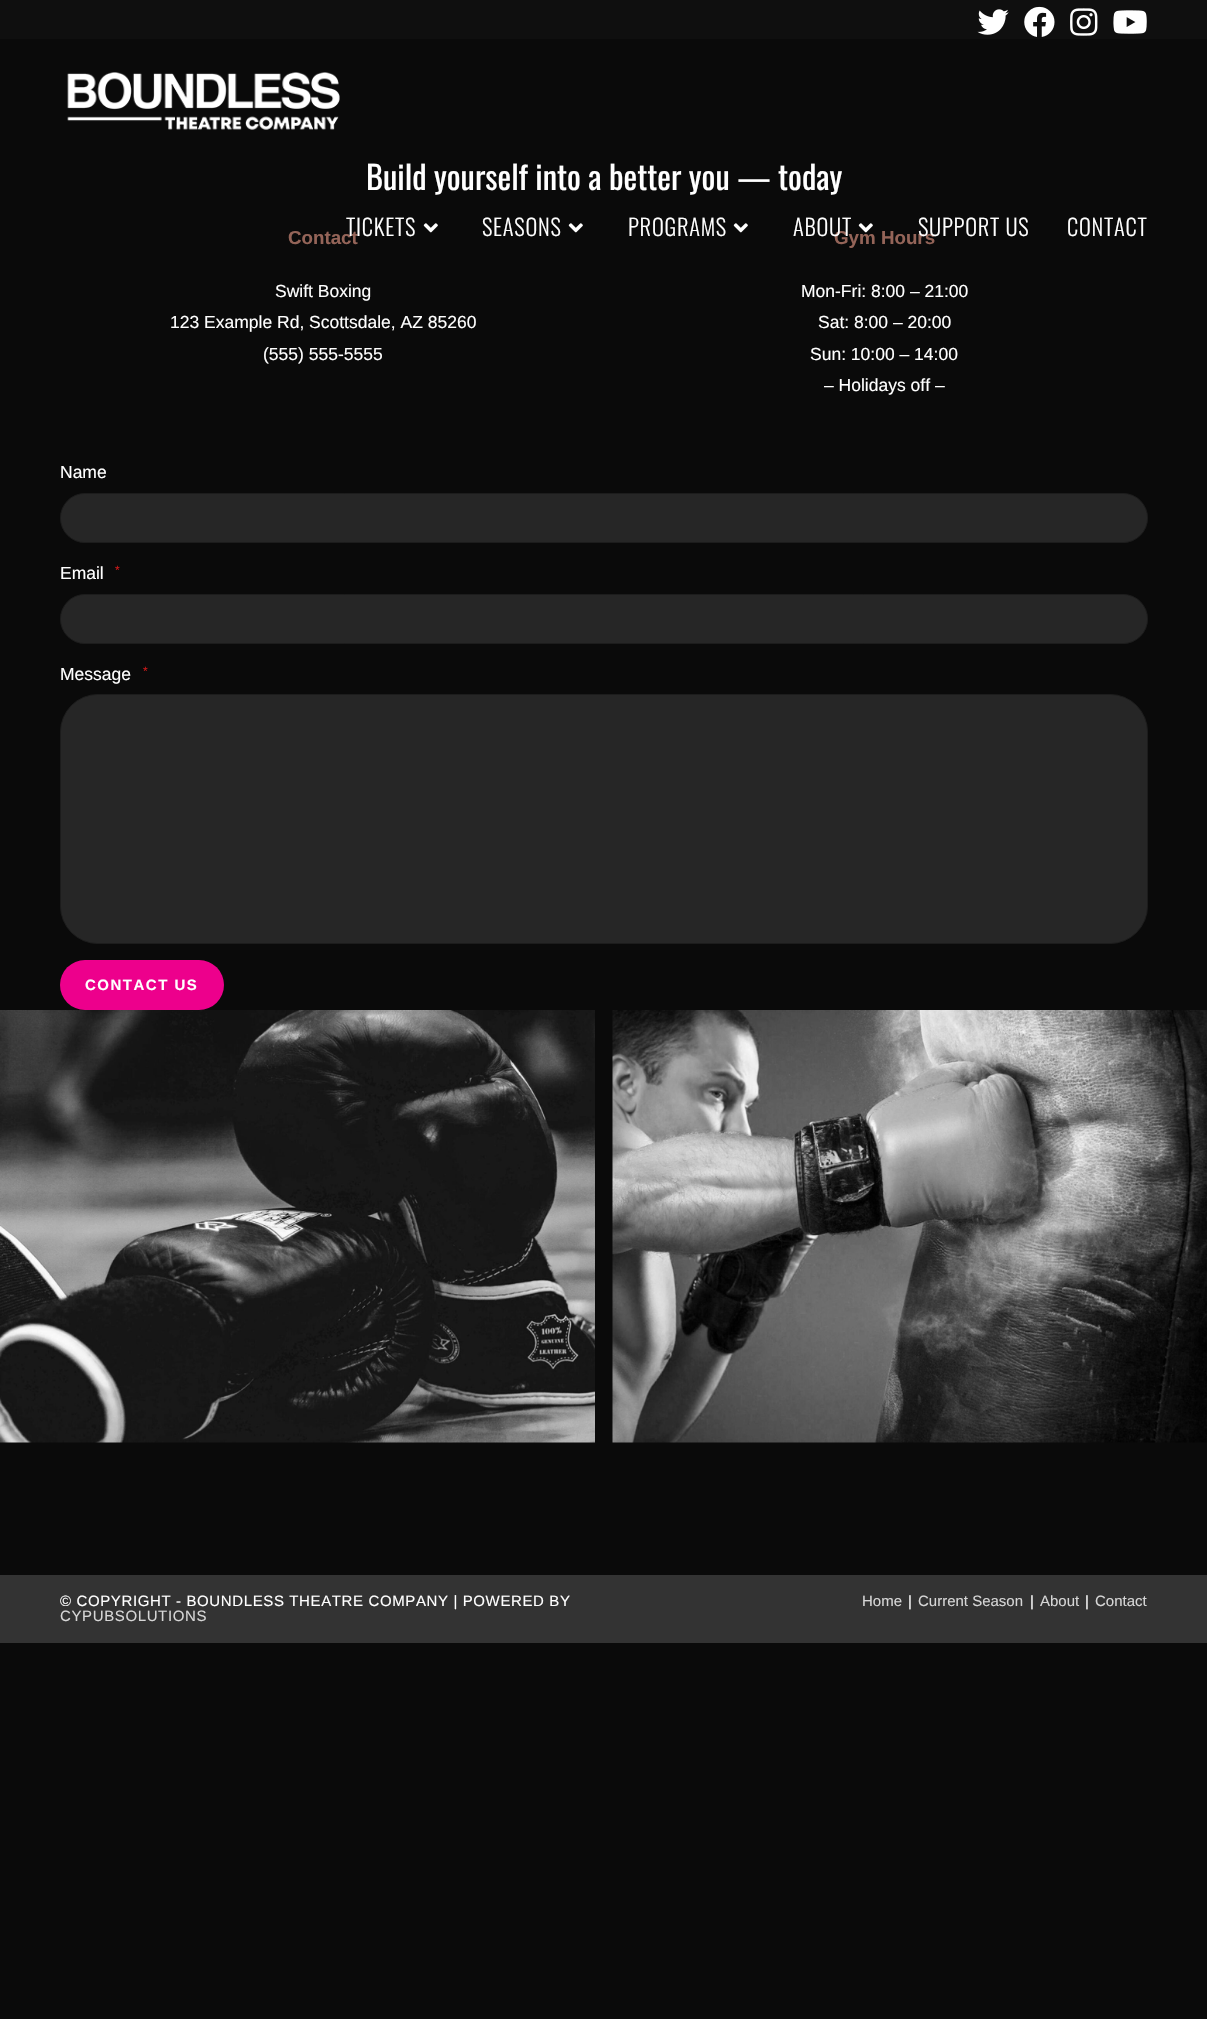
void draw(SkCanvas* canvas) {
  SkPaint paint;
  paint.setAntiAlias(true);
  auto face = [&](const char* family, int weight, float size, bool italic = false) {
    SkFontStyle style(weight, SkFontStyle::kNormal_Width,
      italic ? SkFontStyle::kItalic_Slant : SkFontStyle::kUpright_Slant);
    SkFont result(fontMgr->matchFamilyStyle(family, style), size);
    result.setSubpixel(true);
    return result;
  };
  auto writeSpaced = [&](const char* s, float x, float y, const SkFont& font, const SkPaint& ink, float letter, float word) {
    std::vector<SkGlyphID> glyphs(font.countText(s, strlen(s), SkTextEncoding::kUTF8));
    std::vector<float> xs(glyphs.size());
    font.textToGlyphs(s, strlen(s), SkTextEncoding::kUTF8, glyphs);
    font.getXPos(glyphs, xs, x);
    float extra = 0;
    for (size_t i = 0; i < glyphs.size(); i++) {
      xs[i] += extra;
      extra += letter + word * (glyphs[i] == font.unicharToGlyph(' '));
    }
    canvas->drawTextBlob(SkTextBlob::MakeFromPosHGlyphs(glyphs, xs, y, font), 0, 0, ink);
  };
  auto paste = [&](const char* path, float x, float y, float w, float h) {
    auto image = SkImages::DeferredFromEncodedData(SkData::MakeFromFileName(path));
    canvas->drawImageRect(image, SkRect::MakeXYWH(x, y, w, h), SkSamplingOptions());
  };
  canvas->clear(0xff0a0a0a);
  paint.setColor(0xff0f0f0f);
  canvas->drawRect(SkRect::MakeXYWH(0, 0, 1207, 39), paint);
  paste("img/1.png", 977, 9, 32, 26);
  paste("img/2.png", 1024, 6, 31, 31);
  paste("img/3.png", 1070, 8, 28, 28);
  paste("img/4.png", 1113, 10, 34, 24);
  paint.setColor(0xff262626);
  canvas->drawRoundRect(SkRect::MakeXYWH(60.5f, 493.5f, 1087, 49), 24.5f, 24.5f, paint);
  paint.setStroke(true);
  paint.setStrokeWidth(1);
  paint.setColor(0xff1c1c1c);
  canvas->drawRoundRect(SkRect::MakeXYWH(60.5f, 493.5f, 1087, 49), 24.5f, 24.5f, paint);
  paint.setStroke(false);
  paint.setColor(0xff262626);
  canvas->drawRoundRect(SkRect::MakeXYWH(60.5f, 594.5f, 1087, 49), 24.5f, 24.5f, paint);
  paint.setStroke(true);
  paint.setColor(0xff1c1c1c);
  canvas->drawRoundRect(SkRect::MakeXYWH(60.5f, 594.5f, 1087, 49), 24.5f, 24.5f, paint);
  paint.setStroke(false);
  paint.setColor(0xff262626);
  canvas->drawRoundRect(SkRect::MakeXYWH(60.5f, 694.5f, 1087, 249), 37.5f, 37.5f, paint);
  paint.setStroke(true);
  paint.setColor(0xff1c1c1c);
  canvas->drawRoundRect(SkRect::MakeXYWH(60.5f, 694.5f, 1087, 249), 37.5f, 37.5f, paint);
  paint.setStroke(false);
  paint.setColor(0xffed008c);
  canvas->drawRoundRect(SkRect::MakeXYWH(60, 960, 164, 50), 25, 25, paint);
  paste("img/5.png", 0, 1010, 595, 433);
  paste("img/6.png", 612, 1010, 595, 433);
  paste("img/7.png", 67, 72, 273, 58);
  paste("img/8.png", 423, 223, 15, 10);
  paste("img/8.png", 568, 223, 15, 10);
  paste("img/8.png", 733, 223, 15, 10);
  paint.setColor(0xff333333);
  canvas->drawRect(SkRect::MakeXYWH(0, 1575, 1207, 68), paint);
  auto f0 = face("Oswald", 400, 32.5f);
  paint.setColor(0xffffffff);
  canvas->drawString("Build yourself into a better you — today", 366, 190, f0, paint);
  auto f1 = face("Liberation Sans", 700, 18.75f);
  paint.setColor(0xff946458);
  canvas->drawString("Contact", 288, 244, f1, paint);
  auto f2 = face("Liberation Sans", 400, 17.5f);
  paint.setColor(0xffffffff);
  {
    const struct { const char* s; float x, y; } items[] = {
      {"Swift Boxing", 275, 297},
      {"123 Example Rd, Scottsdale, AZ 85260", 170, 328},
      {"(555) 555-5555", 263, 360},
    };
    for (auto [s, x, y] : items) {
      canvas->drawString(s, x, y, f2, paint);
    }
  }
  paint.setColor(0xff946458);
  canvas->drawString("Gym Hours", 834, 244, f1, paint);
  paint.setColor(0xffffffff);
  {
    const struct { const char* s; float x, y; } items[] = {
      {"Mon-Fri: 8:00 – 21:00", 801, 297},
      {"Sat: 8:00 – 20:00", 818, 328},
      {"Sun: 10:00 – 14:00", 810, 360},
      {"– Holidays off –", 824, 391},
      {"Name", 60, 478},
      {"Email", 60, 579},
    };
    for (auto [s, x, y] : items) {
      canvas->drawString(s, x, y, f2, paint);
    }
  }
  auto f3 = face("Liberation Sans", 400, 12);
  paint.setColor(0xffcc1818);
  canvas->drawString("*", 115, 574, f3, paint);
  paint.setColor(0xffffffff);
  canvas->drawString("Message", 60, 680, f2, paint);
  paint.setColor(0xffcc1818);
  canvas->drawString("*", 143, 675, f3, paint);
  auto f4 = face("Liberation Sans", 700, 15);
  paint.setColor(0xffffffff);
  writeSpaced("CONTACT US", 85, 990, f4, paint, 1.5f, 0);
  auto f5 = face("Oswald", 300, 22.5f);
  {
    const struct { const char* s; float x, y; } items[] = {
      {"TICKETS", 346, 236},
      {"SEASONS", 482, 236},
      {"PROGRAMS", 628, 236},
      {"ABOUT", 793, 236},
    };
    for (auto [s, x, y] : items) {
      writeSpaced(s, x, y, f5, paint, 0.75f, 0);
    }
  }
  paste("img/8.png", 858, 223, 15, 10);
  writeSpaced("SUPPORT US", 918, 236, f5, paint, 0.75f, 0);
  writeSpaced("CONTACT", 1067, 236, f5, paint, 0.75f, 0);
  auto f6 = face("Liberation Sans", 400, 15);
  writeSpaced("© COPYRIGHT - BOUNDLESS THEATRE COMPANY | POWERED BY", 60, 1606, f6, paint, 0.62f, 0);
  paint.setColor(0xffd6d6d6);
  writeSpaced("CYPUBSOLUTIONS", 60, 1621, f6, paint, 0.62f, 0);
  canvas->drawString("Home", 862, 1606, f6, paint);
  paint.setColor(0xffffffff);
  canvas->drawString("|", 908, 1606, f6, paint);
  paint.setColor(0xffd6d6d6);
  canvas->drawString("Current Season", 918, 1606, f6, paint);
  paint.setColor(0xffffffff);
  canvas->drawString("|", 1030, 1606, f6, paint);
  paint.setColor(0xffd6d6d6);
  canvas->drawString("About", 1040, 1606, f6, paint);
  paint.setColor(0xffffffff);
  canvas->drawString("|", 1085, 1606, f6, paint);
  paint.setColor(0xffd6d6d6);
  canvas->drawString("Contact", 1095, 1606, f6, paint);
}
